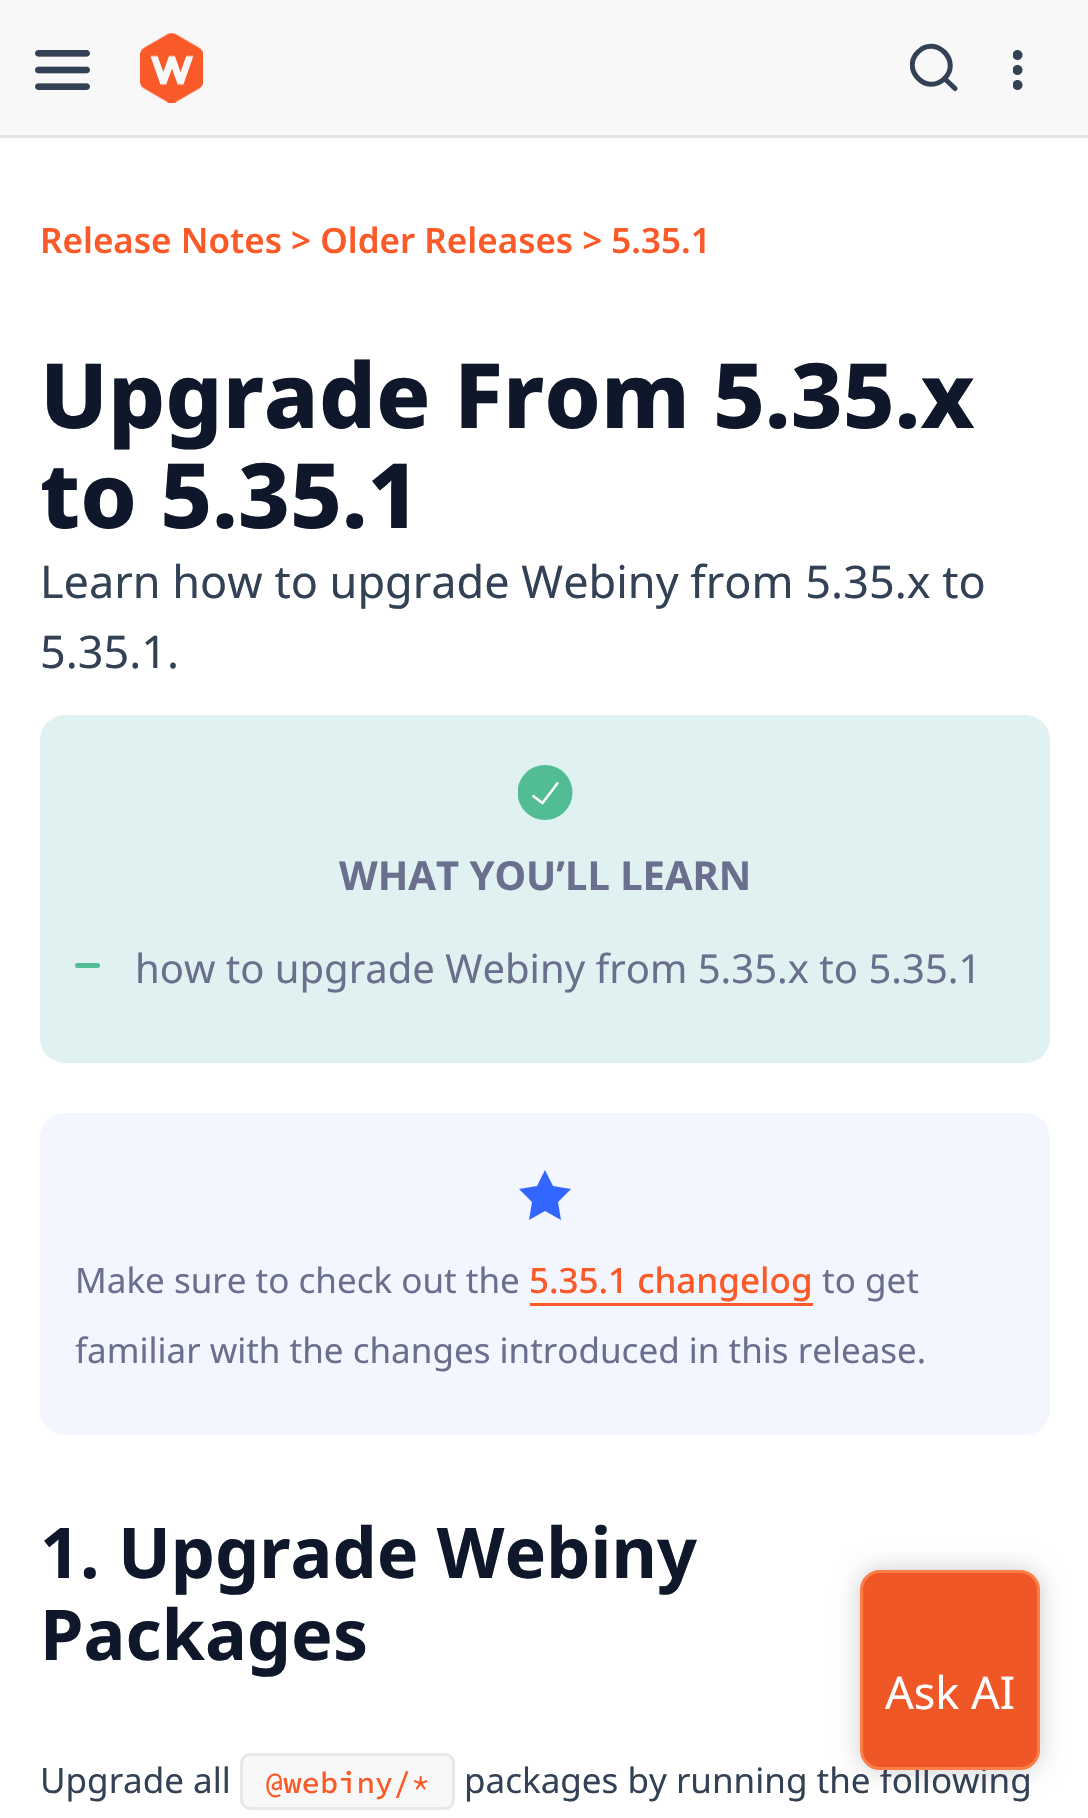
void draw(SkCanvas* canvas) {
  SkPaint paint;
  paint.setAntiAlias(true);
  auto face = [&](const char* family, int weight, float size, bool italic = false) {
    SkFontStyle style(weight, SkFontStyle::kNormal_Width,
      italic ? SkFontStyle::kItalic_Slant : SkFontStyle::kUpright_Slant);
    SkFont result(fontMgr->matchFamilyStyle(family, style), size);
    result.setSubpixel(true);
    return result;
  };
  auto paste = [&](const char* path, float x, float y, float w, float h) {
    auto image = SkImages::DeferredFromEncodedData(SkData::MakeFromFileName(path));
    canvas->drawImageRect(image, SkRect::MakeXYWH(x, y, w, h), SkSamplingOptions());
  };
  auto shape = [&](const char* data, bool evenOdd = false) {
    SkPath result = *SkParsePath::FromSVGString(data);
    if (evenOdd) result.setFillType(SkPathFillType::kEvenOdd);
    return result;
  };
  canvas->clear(0xffffffff);
  paint.setColor(0xffe5e5e5);
  canvas->drawRect(SkRect::MakeXYWH(0, 135, 1088, 3), paint);
  paint.setColor(0xfff8f8f8);
  canvas->drawRect(SkRect::MakeXYWH(0, 0, 1088, 135), paint);
  paste("img/1.png", 35, 50, 55, 40);
  paste("img/2.png", 140, 33, 63, 70);
  canvas->save();
  canvas->clipRect(SkRect::MakeXYWH(910, 43, 48, 50));
  paint.setStroke(true);
  paint.setStrokeWidth(5);
  paint.setStrokeCap(SkPaint::kRound_Cap);
  paint.setStrokeJoin(SkPaint::kRound_Join);
  paint.setColor(0xff334155);
  canvas->drawPath(shape("M944.5 78.5L955 88.5L944.5 78.5C927 96 900.5 69.5 918 52C935.5 34.5 962 61 944.5 78.5Z"), paint);
  canvas->restore();
  paste("img/3.png", 1013, 50, 10, 40);
  paint.setStroke(false);
  paint.setColor(0xffdff1f1);
  canvas->drawRoundRect(SkRect::MakeXYWH(40, 715, 1010, 348), 25, 25, paint);
  canvas->save();
  canvas->clipRect(SkRect::MakeXYWH(518, 765, 55, 55));
  paint.setColor(0xff52bd94);
  canvas->drawCircle(545, 792.5f, 27.5f, paint);
  canvas->restore();
  paint.setStroke(true);
  paint.setStrokeWidth(2.5f);
  paint.setStrokeCap(SkPaint::kButt_Cap);
  paint.setStrokeJoin(SkPaint::kMiter_Join);
  paint.setColor(0xffffffff);
  canvas->drawPath(shape("M532.5 795.5L542.5 803L558 782.5"), paint);
  paint.setStroke(false);
  paint.setColor(0xff52bd94);
  canvas->drawRoundRect(SkRect::MakeXYWH(75, 963, 25, 5), 2.5f, 2.5f, paint);
  paint.setColor(0xfff3f6ff);
  canvas->drawRoundRect(SkRect::MakeXYWH(40, 1113, 1010, 322), 25, 25, paint);
  paint.setColor(0xff3366ff);
  canvas->drawPath(shape("M545 1170L553 1186L571 1189L558 1202L561 1220L545 1211L529 1220L532 1202L519 1189L537 1186Z"), paint);
  paint.setColor(0xfffa5a28);
  canvas->drawRect(SkRect::MakeXYWH(530, 1303, 283, 3), paint);
  paint.setColor(0xfff8f8f8);
  canvas->drawRoundRect(SkRect::MakeXYWH(241.5f, 1754.5f, 212, 54), 8.5f, 8.5f, paint);
  paint.setStroke(true);
  paint.setStrokeWidth(3);
  paint.setColor(0xffe8e8e8);
  canvas->drawRoundRect(SkRect::MakeXYWH(241.5f, 1754.5f, 212, 54), 8.5f, 8.5f, paint);
  paint.setStroke(false);
  paint.setColor(0x33000000);
  paint.setMaskFilter(SkMaskFilter::MakeBlur(kNormal_SkBlurStyle, 12.5f));
  canvas->drawRoundRect(SkRect::MakeXYWH(860, 1570, 180, 200), 20, 20, paint);
  paint.setMaskFilter(nullptr);
  auto f0 = face("Noto Sans", 600, 35);
  paint.setColor(0xfffa5a28);
  canvas->drawString("Release Notes > Older Releases > 5.35.1", 40, 253, f0, paint);
  auto f1 = face("Noto Sans", 800, 90);
  paint.setColor(0xff0f172a);
  canvas->drawString("Upgrade From 5.35.x", 40, 428, f1, paint);
  canvas->drawString("to 5.35.1", 40, 528, f1, paint);
  auto f2 = face("Noto Sans", 400, 45);
  paint.setColor(0xff334155);
  canvas->drawString("Learn how to upgrade Webiny from 5.35.x to", 40, 598, f2, paint);
  canvas->drawString("5.35.1.", 40, 668, f2, paint);
  auto f3 = face("Noto Sans", 700, 40);
  paint.setColor(0xff696f8c);
  canvas->drawString("WHAT YOU’LL LEARN", 339, 890, f3, paint);
  auto f4 = face("Noto Sans", 400, 40);
  canvas->drawString("how to upgrade Webiny from 5.35.x to 5.35.1", 135, 983, f4, paint);
  auto f5 = face("Noto Sans", 400, 35);
  canvas->drawString("Make sure to check out the", 75, 1293, f5, paint);
  auto f6 = face("Noto Sans", 500, 35);
  paint.setColor(0xfffa5a28);
  canvas->drawString("5.35.1 changelog", 529, 1293, f6, paint);
  paint.setColor(0xff696f8c);
  canvas->drawString("to get", 822, 1293, f5, paint);
  canvas->drawString("familiar with the changes introduced in this release.", 75, 1363, f5, paint);
  auto f7 = face("Noto Sans", 700, 70);
  paint.setColor(0xff0f172a);
  canvas->drawString("1. Upgrade Webiny", 40, 1578, f7, paint);
  canvas->drawString("Packages", 40, 1660, f7, paint);
  paint.setColor(0xff334155);
  canvas->drawString("Upgrade all", 40, 1793, f5, paint);
  auto f8 = face("Source Code Pro", 500, 30.5f);
  paint.setColor(0xfffa5a28);
  canvas->drawString("@webiny/*", 265, 1793, f8, paint);
  paint.setColor(0xff334155);
  canvas->drawString("packages by running the following", 464, 1793, f5, paint);
  paint.setColor(0xffef5727);
  canvas->drawRoundRect(SkRect::MakeXYWH(861.5f, 1571.5f, 177, 197), 18.5f, 18.5f, paint);
  paint.setStroke(true);
  paint.setColor(0xfffb7d48);
  canvas->drawRoundRect(SkRect::MakeXYWH(861.5f, 1571.5f, 177, 197), 18.5f, 18.5f, paint);
  paint.setStroke(false);
  paint.setColor(0xffffffff);
  canvas->drawString("Ask AI", 885, 1709, f2, paint);
}
